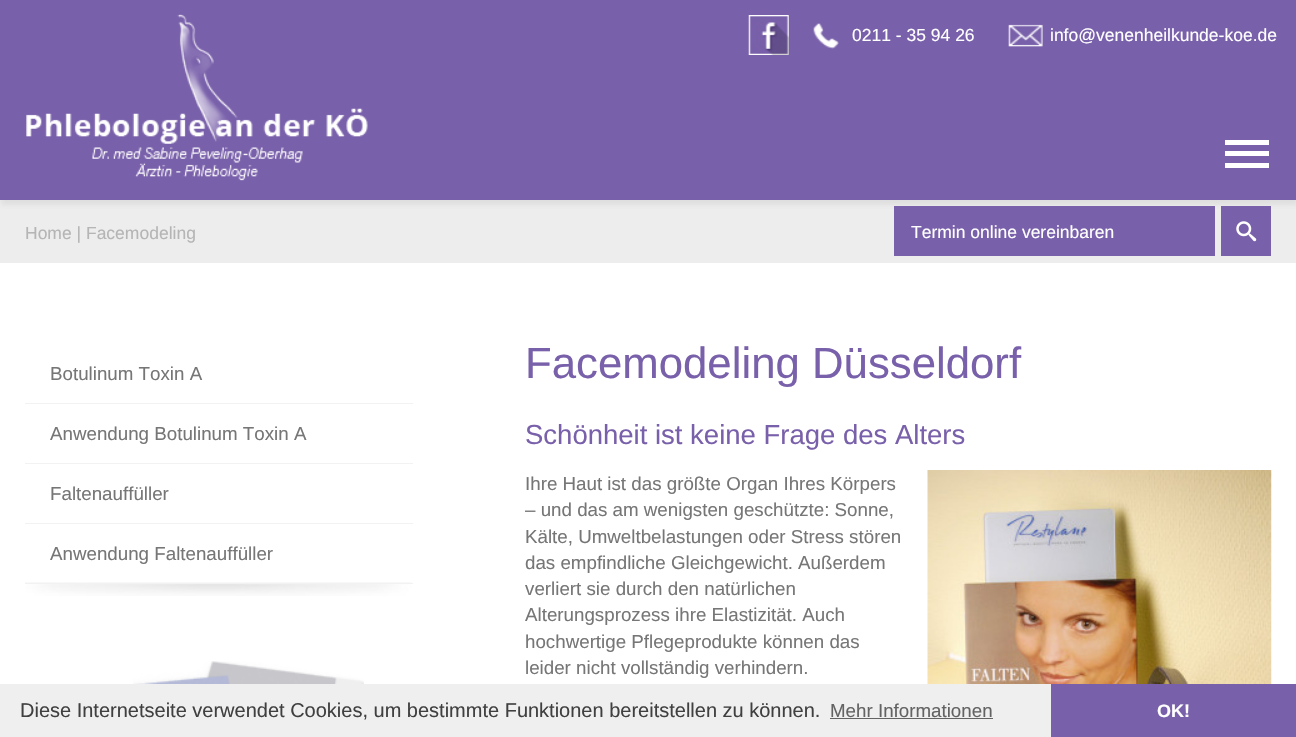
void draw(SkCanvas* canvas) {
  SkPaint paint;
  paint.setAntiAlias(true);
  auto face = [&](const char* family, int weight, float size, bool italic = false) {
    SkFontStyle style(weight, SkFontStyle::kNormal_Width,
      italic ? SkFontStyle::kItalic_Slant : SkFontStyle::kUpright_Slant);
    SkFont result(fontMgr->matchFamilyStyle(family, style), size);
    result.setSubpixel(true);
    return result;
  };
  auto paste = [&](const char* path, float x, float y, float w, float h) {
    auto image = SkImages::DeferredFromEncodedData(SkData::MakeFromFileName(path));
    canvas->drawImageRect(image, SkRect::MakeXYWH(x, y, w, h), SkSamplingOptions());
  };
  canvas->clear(0xffffffff);
  paint.setColor(0xffededed);
  canvas->drawRect(SkRect::MakeXYWH(0, 200, 1296, 63), paint);
  paint.setColor(0x33a3a3a3);
  paint.setMaskFilter(SkMaskFilter::MakeBlur(kNormal_SkBlurStyle, 2.5f));
  canvas->drawRect(SkRect::MakeXYWH(1, 5, 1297, 200), paint);
  paint.setMaskFilter(nullptr);
  paint.setColor(0xff7960aa);
  canvas->drawRect(SkRect::MakeXYWH(1221, 206, 50, 50), paint);
  paste("img/1.png", 1236, 221, 21, 21);
  canvas->drawRect(SkRect::MakeXYWH(0, 0, 1296, 200), paint);
  paste("img/2.png", 26, 14, 342, 167);
  paste("img/3.png", 748, 15, 41, 40);
  paste("img/4.png", 813, 23, 26, 26);
  paste("img/5.png", 1008, 24, 35, 23);
  {
    const struct { float x, y, w, h; SkColor color; } items[] = {
      {1225, 140, 44, 5, 0xffffffff},
      {1225, 151, 44, 5, 0xffffffff},
      {1225, 163, 44, 5, 0xffffffff},
      {894, 206, 321, 50, 0xff7960aa},
    };
    for (auto [x, y, w, h, color] : items) {
      paint.setColor(color);
      canvas->drawRect(SkRect::MakeXYWH(x, y, w, h), paint);
    }
  }
  paste("img/6.png", 25, 582, 387, 14);
  {
    const struct { float x, y, w, h; SkColor color; } items[] = {
      {25, 403, 388, 1, 0xfff2f2f2},
      {25, 463, 388, 1, 0xfff2f2f2},
      {25, 523, 388, 1, 0xfff2f2f2},
      {25, 583, 388, 1, 0xfff2f2f2},
    };
    for (auto [x, y, w, h, color] : items) {
      paint.setColor(color);
      canvas->drawRect(SkRect::MakeXYWH(x, y, w, h), paint);
    }
  }
  paste("img/7.png", 133, 661, 231, 23);
  paste("img/8.png", 927, 470, 345, 214);
  {
    const struct { float x, y, w, h; SkColor color; } items[] = {
      {0, 684, 1051, 53, 0xffefefef},
      {830, 718, 163, 1, 0xff636363},
      {1051, 684, 245, 53, 0xff7960aa},
    };
    for (auto [x, y, w, h, color] : items) {
      paint.setColor(color);
      canvas->drawRect(SkRect::MakeXYWH(x, y, w, h), paint);
    }
  }
  auto f0 = face("Liberation Sans", 400, 17.5f);
  paint.setColor(0xffb5b5b5);
  canvas->drawString("Home | Facemodeling", 25, 239, f0, paint);
  paint.setColor(0xffffffff);
  {
    const struct { const char* s; float x, y; } items[] = {
      {"0211 - 35 94 26", 852, 41},
      {"info@venenheilkunde-koe.de", 1050, 41},
      {"Termin online vereinbaren", 911, 238},
    };
    for (auto [s, x, y] : items) {
      canvas->drawString(s, x, y, f0, paint);
    }
  }
  auto f1 = face("Liberation Sans", 400, 18.75f);
  paint.setColor(0xff767676);
  {
    const struct { const char* s; float x, y; } items[] = {
      {"Botulinum Toxin A", 50, 380},
      {"Anwendung Botulinum Toxin A", 50, 440},
      {"Faltenauffüller", 50, 500},
      {"Anwendung Faltenauffüller", 50, 560},
    };
    for (auto [s, x, y] : items) {
      canvas->drawString(s, x, y, f1, paint);
    }
  }
  auto f2 = face("Liberation Sans", 400, 43.75f);
  paint.setColor(0xff7960aa);
  canvas->drawString("Facemodeling Düsseldorf", 525, 378, f2, paint);
  auto f3 = face("Liberation Sans", 400, 27.5f);
  canvas->drawString("Schönheit ist keine Frage des Alters", 525, 444, f3, paint);
  paint.setColor(0xff767676);
  {
    const struct { const char* s; float x, y; } items[] = {
      {"Ihre Haut ist das größte Organ Ihres Körpers", 525, 490},
      {"– und das am wenigsten geschützte: Sonne,", 525, 516},
      {"Kälte, Umweltbelastungen oder Stress stören", 525, 543},
      {"das empfindliche Gleichgewicht. Außerdem", 525, 569},
      {"verliert sie durch den natürlichen", 525, 595},
      {"Alterungsprozess ihre Elastizität. Auch", 525, 621},
      {"hochwertige Pflegeprodukte können das", 525, 648},
      {"leider nicht vollständig verhindern.", 525, 674},
    };
    for (auto [s, x, y] : items) {
      canvas->drawString(s, x, y, f1, paint);
    }
  }
  auto f4 = face("Liberation Sans", 400, 20);
  paint.setColor(0xff404040);
  canvas->drawString("Diese Internetseite verwendet Cookies, um bestimmte Funktionen bereitstellen zu können.", 20, 717, f4, paint);
  paint.setColor(0xff636363);
  canvas->drawString("Mehr Informationen", 830, 717, f1, paint);
  auto f5 = face("Liberation Sans", 700, 18);
  paint.setColor(0xffffffff);
  canvas->drawString("OK!", 1157, 717, f5, paint);
}
